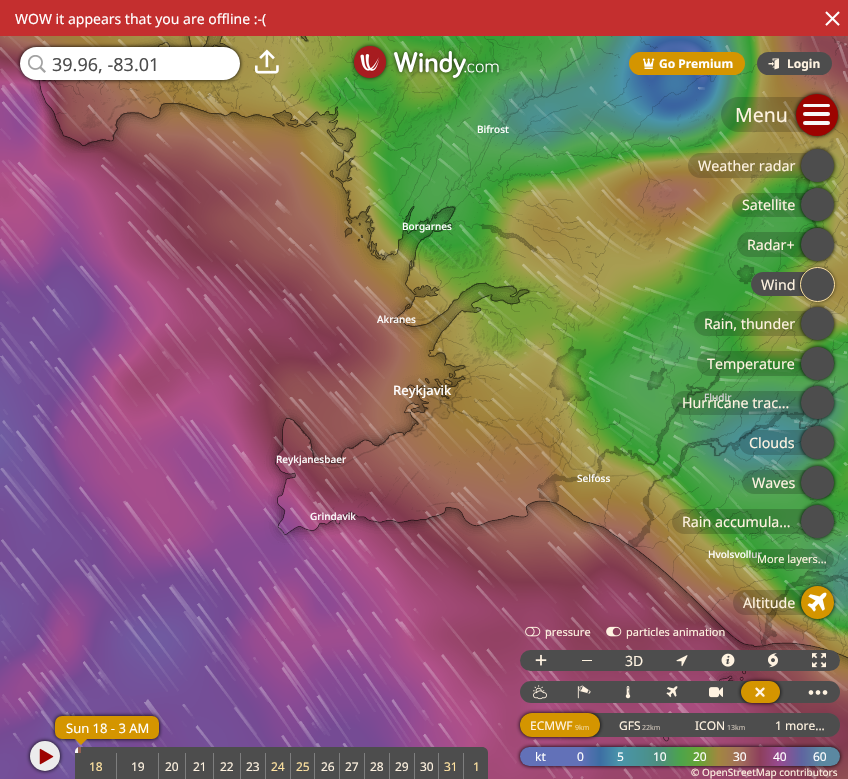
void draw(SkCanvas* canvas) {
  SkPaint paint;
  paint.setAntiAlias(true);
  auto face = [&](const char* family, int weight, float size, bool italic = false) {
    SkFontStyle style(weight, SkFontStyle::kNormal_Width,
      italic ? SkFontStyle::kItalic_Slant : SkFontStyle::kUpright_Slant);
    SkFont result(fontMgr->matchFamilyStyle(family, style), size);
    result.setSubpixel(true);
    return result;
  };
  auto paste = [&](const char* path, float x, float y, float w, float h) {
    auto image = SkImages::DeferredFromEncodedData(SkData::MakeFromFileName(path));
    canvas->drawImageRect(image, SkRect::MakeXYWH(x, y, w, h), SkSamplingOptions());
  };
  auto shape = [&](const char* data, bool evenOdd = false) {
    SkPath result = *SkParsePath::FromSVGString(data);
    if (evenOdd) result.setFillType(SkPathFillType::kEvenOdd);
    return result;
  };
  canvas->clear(0xffffffff);
  paint.setColor(0xffc42f2f);
  canvas->drawRect(SkRect::MakeXYWH(0, 0, 848, 36), paint);
  paste("img/1.png", 825, 11, 15, 15);
  paste("img/23.png", 0, 36, 65, 90);
  paste("img/24.png", 65, 36, 256, 90);
  paste("img/25.png", 321, 36, 256, 90);
  paste("img/26.png", 577, 36, 256, 90);
  paste("img/27.png", 833, 36, 15, 90);
  paste("img/28.png", 0, 126, 65, 256);
  paste("img/29.png", 65, 126, 256, 256);
  paste("img/30.png", 321, 126, 256, 256);
  paste("img/31.png", 577, 126, 256, 256);
  paste("img/32.png", 833, 126, 15, 256);
  paste("img/33.png", 0, 382, 65, 256);
  paste("img/34.png", 65, 382, 256, 256);
  paste("img/35.png", 321, 382, 256, 256);
  paste("img/36.png", 577, 382, 256, 256);
  paste("img/37.png", 833, 382, 15, 256);
  paste("img/38.png", 0, 638, 65, 141);
  paste("img/39.png", 65, 638, 256, 141);
  paste("img/40.png", 321, 638, 256, 141);
  paste("img/41.png", 577, 638, 256, 141);
  paste("img/42.png", 833, 638, 15, 141);
  paste("img/43.png", 0, 36, 848, 743);
  paste("img/44.png", 31, 79, 34, 47);
  paste("img/45.png", 65, 36, 256, 90);
  paint.setColor(0xff000000);
  paint.setMaskFilter(SkMaskFilter::MakeBlur(kNormal_SkBlurStyle, 2));
  canvas->drawRoundRect(SkRect::MakeXYWH(20, 47, 220, 33), 16.5f, 16.5f, paint);
  paint.setMaskFilter(nullptr);
  paint.setColor(0xffffffff);
  canvas->drawRoundRect(SkRect::MakeXYWH(20, 47, 220, 33), 16.5f, 16.5f, paint);
  paste("img/2.png", 28, 55, 18, 18);
  paste("img/3.png", 255, 49, 24, 25);
  paste("img/46.png", 321, 36, 256, 90);
  paste("img/4.png", 350, 42, 40, 40);
  paste("img/5.png", 390, 48, 112, 33);
  paste("img/47.png", 577, 36, 256, 90);
  paint.setColor(0xffd49500);
  canvas->drawRoundRect(SkRect::MakeXYWH(629, 52, 116, 23), 11.5f, 11.5f, paint);
  paste("img/6.png", 643, 58, 12, 11);
  paint.setColor(0xff4d4d4d);
  canvas->drawRoundRect(SkRect::MakeXYWH(757, 52, 75, 23), 11.5f, 11.5f, paint);
  paste("img/7.png", 768, 58, 11, 12);
  paste("img/52.png", 577, 126, 256, 256);
  paint.setColor(0x2e000000);
  canvas->drawPath(shape("M738.5 97H816V132H738.5C729 132 721 124 721 114.5C721 105 729 97 738.5 97Z"), paint);
  paste("img/48.png", 833, 36, 15, 90);
  paste("img/53.png", 833, 126, 15, 256);
  paint.setColor(0xff000000);
  paint.setMaskFilter(SkMaskFilter::MakeBlur(kNormal_SkBlurStyle, 2));
  canvas->drawRoundRect(SkRect::MakeXYWH(796, 94, 42, 42), 21, 21, paint);
  paint.setMaskFilter(nullptr);
  paint.setColor(0xff9d0300);
  canvas->drawCircle(817, 115, 21, paint);
  paint.setColor(0xfff8f8f8);
  canvas->drawRoundRect(SkRect::MakeXYWH(803, 104, 27, 3), 1.5f, 1.5f, paint);
  canvas->drawRoundRect(SkRect::MakeXYWH(803, 112, 27, 4), 2, 2, paint);
  canvas->drawRoundRect(SkRect::MakeXYWH(803, 121, 27, 4), 2, 2, paint);
  paint.setColor(0x2e000000);
  canvas->drawPath(shape("M700.5 153H815V178H700.5C693.5 178 688 172.5 688 165.5C688 158.5 693.5 153 700.5 153Z"), paint);
  paint.setColor(0xff000000);
  paint.setMaskFilter(SkMaskFilter::MakeBlur(kNormal_SkBlurStyle, 2));
  canvas->drawRoundRect(SkRect::MakeXYWH(801, 149, 33, 33), 16.5f, 16.5f, paint);
  paint.setMaskFilter(nullptr);
  paint.setColor(0xff4d4d4d);
  canvas->drawCircle(817.5f, 165.5f, 16.5f, paint);
  paint.setColor(0x2e000000);
  canvas->drawPath(shape("M744 193H815V217H744C737.5 217 732 211.5 732 205C732 198.5 737.5 193 744 193Z"), paint);
  paint.setColor(0xff000000);
  paint.setMaskFilter(SkMaskFilter::MakeBlur(kNormal_SkBlurStyle, 2));
  canvas->drawRoundRect(SkRect::MakeXYWH(801, 188, 33, 33), 16.5f, 16.5f, paint);
  paint.setMaskFilter(nullptr);
  paint.setColor(0xff4d4d4d);
  canvas->drawCircle(817.5f, 204.5f, 16.5f, paint);
  paint.setColor(0x2e000000);
  canvas->drawPath(shape("M749.5 232H815V257H749.5C742.5 257 737 251.5 737 244.5C737 237.5 742.5 232 749.5 232Z"), paint);
  paint.setColor(0xff000000);
  paint.setMaskFilter(SkMaskFilter::MakeBlur(kNormal_SkBlurStyle, 2));
  canvas->drawRoundRect(SkRect::MakeXYWH(801, 228, 33, 33), 16.5f, 16.5f, paint);
  paint.setMaskFilter(nullptr);
  paint.setColor(0xff4d4d4d);
  canvas->drawCircle(817.5f, 244.5f, 16.5f, paint);
  canvas->drawPath(shape("M763 272H815V296H763C756.5 296 751 290.5 751 284C751 277.5 756.5 272 763 272Z"), paint);
  paint.setColor(0xff000000);
  paint.setMaskFilter(SkMaskFilter::MakeBlur(kNormal_SkBlurStyle, 2));
  canvas->drawRoundRect(SkRect::MakeXYWH(801, 268, 33, 33), 16.5f, 16.5f, paint);
  paint.setMaskFilter(nullptr);
  paint.setColor(0xff4d4d4d);
  canvas->drawCircle(817.5f, 284.5f, 17, paint);
  paint.setStroke(true);
  paint.setStrokeWidth(1);
  paint.setColor(0xffffe3a1);
  canvas->drawCircle(817.5f, 284.5f, 17, paint);
  paint.setStroke(false);
  paint.setColor(0x2e000000);
  canvas->drawPath(shape("M706.5 311H815V336H706.5C699.5 336 694 330.5 694 323.5C694 316.5 699.5 311 706.5 311Z"), paint);
  paint.setColor(0xff000000);
  paint.setMaskFilter(SkMaskFilter::MakeBlur(kNormal_SkBlurStyle, 2));
  canvas->drawRoundRect(SkRect::MakeXYWH(801, 307, 33, 33), 16.5f, 16.5f, paint);
  paint.setMaskFilter(nullptr);
  paint.setColor(0xff4d4d4d);
  canvas->drawCircle(817.5f, 323.5f, 16.5f, paint);
  paint.setColor(0x2e000000);
  canvas->drawPath(shape("M709.5 351H815V376H709.5C702.5 376 697 370.5 697 363.5C697 356.5 702.5 351 709.5 351Z"), paint);
  paste("img/56.png", 577, 382, 256, 256);
  paste("img/57.png", 833, 382, 15, 256);
  paint.setColor(0xff000000);
  paint.setMaskFilter(SkMaskFilter::MakeBlur(kNormal_SkBlurStyle, 2));
  canvas->drawRoundRect(SkRect::MakeXYWH(801, 347, 33, 33), 16.5f, 16.5f, paint);
  paint.setMaskFilter(nullptr);
  paint.setColor(0xff4d4d4d);
  canvas->drawCircle(817.5f, 363.5f, 16.5f, paint);
  paint.setColor(0x2e000000);
  canvas->drawPath(shape("M751.5 430H815V455H751.5C744.5 455 739 449.5 739 442.5C739 435.5 744.5 430 751.5 430Z"), paint);
  paint.setColor(0xff000000);
  paint.setMaskFilter(SkMaskFilter::MakeBlur(kNormal_SkBlurStyle, 2));
  canvas->drawRoundRect(SkRect::MakeXYWH(801, 426, 33, 33), 16.5f, 16.5f, paint);
  paint.setMaskFilter(nullptr);
  paint.setColor(0xff4d4d4d);
  canvas->drawCircle(817.5f, 442.5f, 16.5f, paint);
  paint.setColor(0x2e000000);
  canvas->drawPath(shape("M754 470H815V494H754C747.5 494 742 488.5 742 482C742 475.5 747.5 470 754 470Z"), paint);
  paint.setColor(0xff000000);
  paint.setMaskFilter(SkMaskFilter::MakeBlur(kNormal_SkBlurStyle, 2));
  canvas->drawRoundRect(SkRect::MakeXYWH(801, 466, 33, 33), 16.5f, 16.5f, paint);
  paint.setMaskFilter(nullptr);
  paint.setColor(0xff4d4d4d);
  canvas->drawCircle(817.5f, 482.5f, 16.5f, paint);
  paint.setColor(0x2e000000);
  canvas->drawPath(shape("M684.5 509H815V534H684.5C677.5 534 672 528.5 672 521.5C672 514.5 677.5 509 684.5 509Z"), paint);
  paint.setColor(0xff000000);
  paint.setMaskFilter(SkMaskFilter::MakeBlur(kNormal_SkBlurStyle, 2));
  canvas->drawRoundRect(SkRect::MakeXYWH(801, 505, 33, 33), 16.5f, 16.5f, paint);
  paint.setMaskFilter(nullptr);
  paint.setColor(0xff4d4d4d);
  canvas->drawCircle(817.5f, 521.5f, 16.5f, paint);
  paint.setColor(0x2e000000);
  canvas->drawPath(shape("M745.5 590H815V615H745.5C738.5 615 733 609.5 733 602.5C733 595.5 738.5 590 745.5 590Z"), paint);
  paint.setColor(0xff000000);
  paint.setMaskFilter(SkMaskFilter::MakeBlur(kNormal_SkBlurStyle, 2));
  canvas->drawRoundRect(SkRect::MakeXYWH(801, 586, 33, 33), 16.5f, 16.5f, paint);
  paint.setMaskFilter(nullptr);
  paint.setColor(0xffd49500);
  canvas->drawCircle(817.5f, 602.5f, 16.5f, paint);
  paste("img/8.png", 807, 592, 20, 20);
  paste("img/9.png", 525, 626, 16, 11);
  paste("img/10.png", 606, 626, 16, 11);
  paste("img/58.png", 661, 638, 172, 106);
  paste("img/59.png", 833, 638, 15, 31);
  paint.setColor(0xff4d4d4d);
  canvas->drawRoundRect(SkRect::MakeXYWH(520, 650, 320, 21), 10.5f, 10.5f, paint);
  paste("img/11.png", 535, 654, 12, 12);
  paint.setColor(0xfffff3e1);
  canvas->drawRect(SkRect::MakeXYWH(582, 660, 10, 1), paint);
  paste("img/12.png", 676, 655, 12, 12);
  paste("img/13.png", 721, 653, 14, 14);
  paste("img/14.png", 768, 653, 10, 15);
  paste("img/15.png", 812, 653, 14, 15);
  paint.setColor(0xff4d4d4d);
  canvas->drawRoundRect(SkRect::MakeXYWH(520, 681, 320, 22), 11, 11, paint);
  paste("img/16.png", 533, 685, 14, 15);
  paste("img/17.png", 577, 685, 14, 14);
  paste("img/18.png", 625, 686, 6, 13);
  paste("img/19.png", 666, 686, 12, 12);
  paste("img/20.png", 709, 687, 14, 11);
  paint.setColor(0xff000000);
  paint.setMaskFilter(SkMaskFilter::MakeBlur(kNormal_SkBlurStyle, 2));
  canvas->drawRoundRect(SkRect::MakeXYWH(741, 681, 39, 22), 11, 11, paint);
  paint.setMaskFilter(nullptr);
  paint.setColor(0xffd49500);
  canvas->drawRoundRect(SkRect::MakeXYWH(741, 681, 39, 22), 11, 11, paint);
  paste("img/21.png", 755, 687, 10, 10);
  paste("img/22.png", 808, 690, 20, 5);
  paint.setColor(0xff4d4d4d);
  canvas->drawRoundRect(SkRect::MakeXYWH(520, 713, 320, 24), 12, 12, paint);
  paint.setColor(0xff000000);
  paint.setMaskFilter(SkMaskFilter::MakeBlur(kNormal_SkBlurStyle, 2));
  canvas->drawRoundRect(SkRect::MakeXYWH(520, 713, 80, 24), 12, 12, paint);
  paint.setMaskFilter(nullptr);
  paint.setColor(0xffd49500);
  canvas->drawRoundRect(SkRect::MakeXYWH(520, 713, 80, 24), 12, 12, paint);
  paint.setColor(0xff000000);
  paint.setMaskFilter(SkMaskFilter::MakeBlur(kNormal_SkBlurStyle, 2));
  canvas->drawRoundRect(SkRect::MakeXYWH(520, 747, 320, 19), 9.5f, 9.5f, paint);
  paint.setMaskFilter(nullptr);
  {
    const SkColor colors[] = {0xff6271b8, 0xff6271b8, 0xff3d6ea3, 0xff4a94aa, 0xff4a9294, 0xff4d8e7c, 0xff4ca44c, 0xff67a436, 0xffa28740, 0xffa26d5c, 0xff8d3f5c, 0xff974b91, 0xff5f64a0, 0xff5b88a1, 0xff5b88a1};
    const float stops[] = {0, 0.19f, 0.25f, 0.31f, 0.38f, 0.44f, 0.5f, 0.56f, 0.62f, 0.69f, 0.75f, 0.81f, 0.88f, 0.94f, 1};
    const SkPoint ends[] = {{520, 757}, {840, 757}};
    paint.setShader(SkGradientShader::MakeLinear(ends, colors, stops, 15, SkTileMode::kClamp));
    paint.setAlpha(255);
  }
  canvas->drawRoundRect(SkRect::MakeXYWH(520, 747, 320, 19), 9.5f, 9.5f, paint);
  paste("img/49.png", 49, 126, 16, 20);
  paste("img/50.png", 65, 126, 256, 27);
  paste("img/51.png", 321, 126, 256, 256);
  paste("img/54.png", 264, 409, 57, 136);
  paste("img/55.png", 321, 382, 256, 154);
  paint.setShader(nullptr);
  paint.setColor(0xff000000);
  paint.setMaskFilter(SkMaskFilter::MakeBlur(kNormal_SkBlurStyle, 2));
  canvas->drawRoundRect(SkRect::MakeXYWH(30, 741, 30, 30), 15, 15, paint);
  paint.setMaskFilter(nullptr);
  paint.setColor(0xffececec);
  canvas->drawCircle(45, 756, 15, paint);
  paste("img/60.png", 39, 748, 15, 17);
  paint.setColor(0xff000000);
  paint.setMaskFilter(SkMaskFilter::MakeBlur(kNormal_SkBlurStyle, 2));
  canvas->drawRoundRect(SkRect::MakeXYWH(55, 716, 104, 23), 7, 7, paint);
  paint.setMaskFilter(nullptr);
  paint.setColor(0xffd49500);
  canvas->drawRoundRect(SkRect::MakeXYWH(55, 716, 104, 23), 7, 7, paint);
  canvas->drawPath(shape("M75 739H87L81 745Z"), paint);
  paint.setColor(0xff4d4d4d);
  canvas->drawPath(shape("M81 747H482C485.5 747 488 749.5 488 753H75C75 749.5 77.5 747 81 747Z"), paint);
  paint.setColor(0xfff8f8f8);
  canvas->drawPath(shape("M80 747V753H75V752C75 749 77 747 80 747Z"), paint);
  {
    const struct { float x, y, w, h; SkColor color; } items[] = {
      {78, 747, 3, 6, 0xff946051},
      {75, 753, 413, 26, 0xff4d4d4d},
      {116, 753, 1, 26, 0xff7e7e7e},
      {158, 753, 1, 26, 0xff7e7e7e},
      {185, 753, 1, 26, 0xff7e7e7e},
      {213, 753, 1, 26, 0xff7e7e7e},
      {240, 753, 1, 26, 0xff7e7e7e},
      {265, 753, 1, 26, 0xff7e7e7e},
      {290, 753, 1, 26, 0xff7e7e7e},
      {314, 753, 1, 26, 0xff7e7e7e},
      {339, 753, 1, 26, 0xff7e7e7e},
      {364, 753, 1, 26, 0xff7e7e7e},
      {389, 753, 1, 26, 0xff7e7e7e},
      {414, 753, 1, 26, 0xff7e7e7e},
      {438, 753, 1, 26, 0xff7e7e7e},
      {463, 753, 1, 26, 0xff7e7e7e},
    };
    for (auto [x, y, w, h, color] : items) {
      paint.setColor(color);
      canvas->drawRect(SkRect::MakeXYWH(x, y, w, h), paint);
    }
  }
  auto f0 = face("Noto Sans", 400, 14);
  paint.setColor(0xffffffff);
  canvas->drawString("WOW it appears that you are offline :-(", 15, 24, f0, paint);
  auto f1 = face("Noto Sans", 400, 18);
  paint.setColor(0xff4d4d4d);
  canvas->drawString("39.96, -83.01", 52, 71, f1, paint);
  auto f2 = face("Noto Sans", 700, 12);
  paint.setColor(0xffffffff);
  canvas->drawString("Go Premium", 659, 68, f2, paint);
  paint.setColor(0xfffff3e1);
  canvas->drawString("Login", 787, 68, f2, paint);
  auto f3 = face("Noto Sans", 400, 19.5f);
  canvas->drawString("Menu", 735, 122, f3, paint);
  auto f4 = face("Noto Sans", 400, 14.25f);
  {
    const struct { const char* s; float x, y; } items[] = {
      {"Weather radar", 698, 171},
      {"Satellite", 742, 210},
      {"Radar+", 747, 250},
      {"Wind", 761, 290},
      {"Rain, thunder", 704, 329},
      {"Temperature", 707, 369},
      {"Clouds", 749, 448},
      {"Waves", 752, 488},
      {"Rain accumula…", 682, 527},
      {"Altitude", 743, 608},
    };
    for (auto [s, x, y] : items) {
      canvas->drawString(s, x, y, f4, paint);
    }
  }
  auto f5 = face("Noto Sans", 400, 11);
  canvas->drawString("pressure", 545, 636, f5, paint);
  canvas->drawString("particles animation", 626, 636, f5, paint);
  canvas->drawString("3D", 625, 666, f0, paint);
  auto f6 = face("Noto Sans", 400, 12);
  canvas->drawString("ECMWF", 530, 730, f6, paint);
  auto f7 = face("Noto Sans", 400, 7);
  paint.setColor(0xfff2d79e);
  canvas->drawString("9km", 575, 730, f7, paint);
  paint.setColor(0xfffff3e1);
  canvas->drawString("GFS", 619, 730, f6, paint);
  paint.setColor(0xffcac1b5);
  canvas->drawString("22km", 642, 730, f7, paint);
  paint.setColor(0xfffff3e1);
  canvas->drawString("ICON", 695, 730, f6, paint);
  paint.setColor(0xffcac1b5);
  canvas->drawString("13km", 727, 730, f7, paint);
  paint.setColor(0xfffff3e1);
  canvas->drawString("1 more...", 775, 730, f6, paint);
  paint.setColor(0xffffffff);
  {
    const struct { const char* s; float x, y; } items[] = {
      {"kt", 535, 761},
      {"0", 577, 761},
      {"5", 617, 761},
      {"10", 653, 761},
      {"20", 693, 761},
      {"30", 733, 761},
      {"40", 773, 761},
      {"60", 813, 761},
    };
    for (auto [s, x, y] : items) {
      canvas->drawString(s, x, y, f6, paint);
    }
  }
  auto f8 = face("Noto Sans", 500, 10);
  {
    const struct { const char* s; float x, y; } items[] = {
      {"Bifrost", 477, 133},
      {"Borgarnes", 402, 230},
      {"Akranes", 377, 323},
    };
    for (auto [s, x, y] : items) {
      canvas->drawString(s, x, y, f8, paint);
    }
  }
  auto f9 = face("Noto Sans", 500, 13);
  canvas->drawString("Reykjavik", 393, 395, f9, paint);
  canvas->drawString("Grindavik", 310, 520, f8, paint);
  canvas->drawString("Fludir", 704, 401, f8, paint);
  paint.setColor(0x2e000000);
  canvas->drawPath(shape("M684 391H815V415H684C677.5 415 672 409.5 672 403C672 396.5 677.5 391 684 391Z"), paint);
  paint.setColor(0xff000000);
  paint.setMaskFilter(SkMaskFilter::MakeBlur(kNormal_SkBlurStyle, 2));
  canvas->drawRoundRect(SkRect::MakeXYWH(801, 386, 33, 33), 16.5f, 16.5f, paint);
  paint.setMaskFilter(nullptr);
  paint.setColor(0xff4d4d4d);
  canvas->drawCircle(817.5f, 402.5f, 16.5f, paint);
  paint.setColor(0xfffff3e1);
  canvas->drawString("Hurricane trac…", 682, 408, f4, paint);
  paint.setColor(0xffffffff);
  canvas->drawString("Selfoss", 577, 482, f8, paint);
  canvas->drawString("Hvolsvollur", 708, 558, f8, paint);
  paint.setColor(0x2e000000);
  canvas->drawRoundRect(SkRect::MakeXYWH(749, 549, 85, 20), 10, 10, paint);
  paint.setColor(0xfffff3e1);
  canvas->drawString("More layers...", 757, 563, f5, paint);
  paint.setColor(0xffffffff);
  canvas->drawString("Reykjanesbaer", 276, 463, f8, paint);
  auto f10 = face("Noto Sans", 400, 13);
  canvas->drawString("Sun 18 - 3 AM", 66, 733, f10, paint);
  paint.setColor(0xffffe3a1);
  canvas->drawString("18", 89, 771, f6, paint);
  paint.setColor(0xfffff3e1);
  {
    const struct { const char* s; float x, y; } items[] = {
      {"19", 131, 771},
      {"20", 165, 771},
      {"21", 193, 771},
      {"22", 220, 771},
      {"23", 246, 771},
    };
    for (auto [s, x, y] : items) {
      canvas->drawString(s, x, y, f6, paint);
    }
  }
  paint.setColor(0xffffe3a1);
  canvas->drawString("24", 271, 771, f6, paint);
  canvas->drawString("25", 296, 771, f6, paint);
  paint.setColor(0xfffff3e1);
  {
    const struct { const char* s; float x, y; } items[] = {
      {"26", 321, 771},
      {"27", 345, 771},
      {"28", 370, 771},
      {"29", 395, 771},
      {"30", 420, 771},
    };
    for (auto [s, x, y] : items) {
      canvas->drawString(s, x, y, f6, paint);
    }
  }
  paint.setColor(0xffffe3a1);
  canvas->drawString("31", 444, 771, f6, paint);
  canvas->drawString("1", 473, 771, f6, paint);
  auto f11 = face("Noto Sans", 400, 10);
  paint.setColor(0xfffff3e1);
  canvas->drawString("© OpenStreetMap contributors", 691, 776, f11, paint);
}
